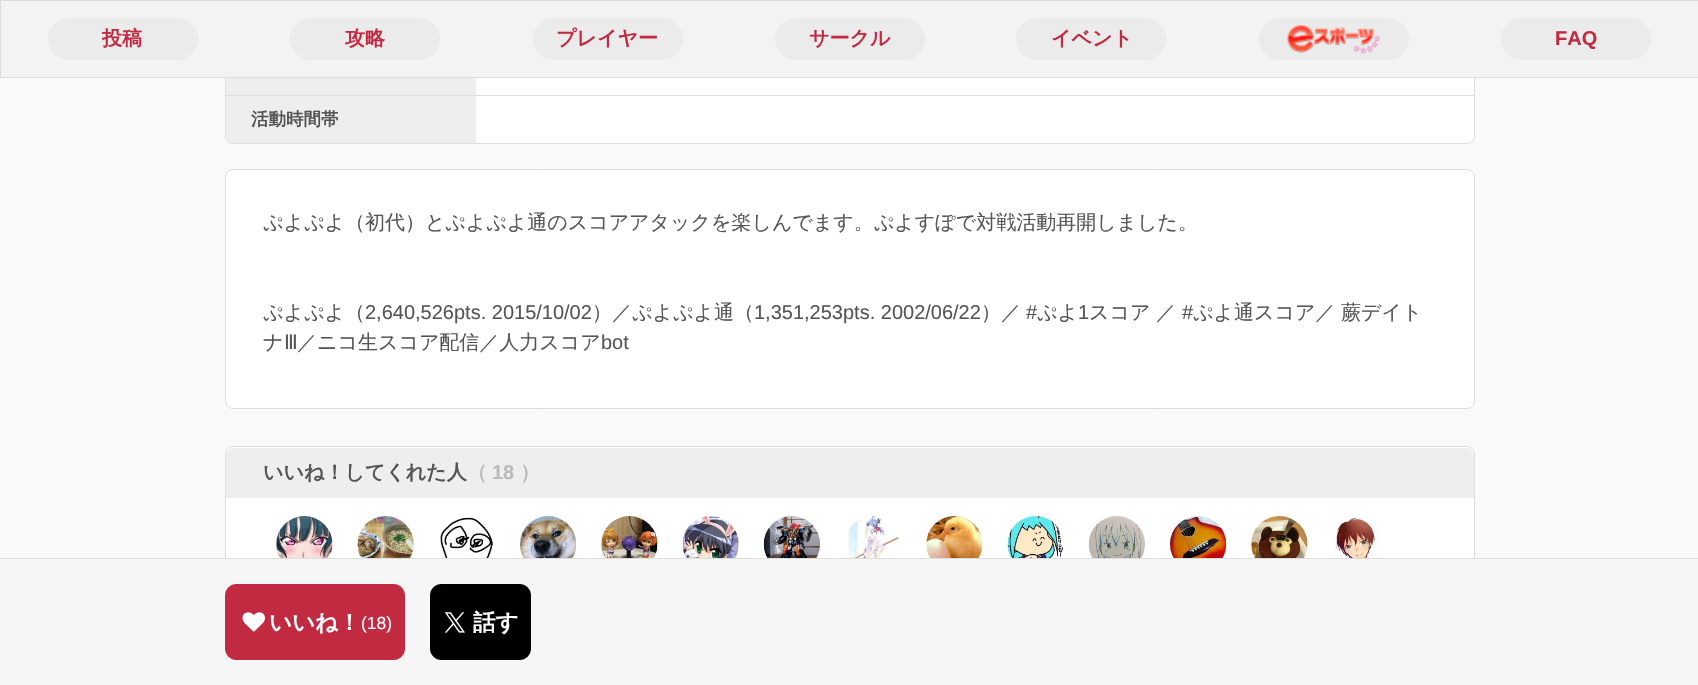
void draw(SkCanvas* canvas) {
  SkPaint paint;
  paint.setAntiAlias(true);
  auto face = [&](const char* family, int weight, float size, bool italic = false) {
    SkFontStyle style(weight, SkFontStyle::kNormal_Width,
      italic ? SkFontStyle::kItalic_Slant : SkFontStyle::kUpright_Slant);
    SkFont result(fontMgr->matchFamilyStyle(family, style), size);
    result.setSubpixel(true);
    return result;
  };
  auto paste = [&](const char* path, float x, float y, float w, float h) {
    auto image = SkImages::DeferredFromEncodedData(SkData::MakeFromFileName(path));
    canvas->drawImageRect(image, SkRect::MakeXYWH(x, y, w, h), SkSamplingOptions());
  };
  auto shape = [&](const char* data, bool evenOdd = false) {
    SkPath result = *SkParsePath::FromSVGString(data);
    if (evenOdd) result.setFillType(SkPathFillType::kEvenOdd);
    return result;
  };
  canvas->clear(0xfff9f9f9);
  paint.setStroke(true);
  paint.setStrokeWidth(1);
  paint.setColor(0xffdddddd);
  canvas->drawRoundRect(SkRect::MakeXYWH(225.5f, -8.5f, 1249, 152), 7.5f, 7.5f, paint);
  paint.setStroke(false);
  paint.setColor(0xfff3f3f3);
  canvas->drawRect(SkRect::MakeXYWH(0.5f, 0.5f, 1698, 77), paint);
  paint.setStroke(true);
  paint.setColor(0xffdddddd);
  canvas->drawRect(SkRect::MakeXYWH(0.5f, 0.5f, 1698, 77), paint);
  paint.setStroke(false);
  paint.setColor(0xffebebeb);
  canvas->drawRoundRect(SkRect::MakeXYWH(48, 18, 150, 42), 21, 21, paint);
  canvas->drawRoundRect(SkRect::MakeXYWH(290, 18, 150, 42), 21, 21, paint);
  canvas->drawRoundRect(SkRect::MakeXYWH(533, 18, 150, 42), 21, 21, paint);
  canvas->drawRoundRect(SkRect::MakeXYWH(775, 18, 150, 42), 21, 21, paint);
  canvas->drawRoundRect(SkRect::MakeXYWH(1016, 18, 150, 42), 21, 21, paint);
  canvas->drawRoundRect(SkRect::MakeXYWH(1259, 18, 150, 42), 21, 21, paint);
  paste("img/1.png", 1287, 24, 94, 30);
  canvas->drawRoundRect(SkRect::MakeXYWH(1501, 18, 150, 42), 21, 21, paint);
  {
    const struct { float x, y, w, h; SkColor color; } items[] = {
      {226, 78, 250, 17, 0xffeeeeee},
      {226, 95, 1248, 1, 0xffdddddd},
      {476, 78, 998, 17, 0xffffffff},
    };
    for (auto [x, y, w, h, color] : items) {
      paint.setColor(color);
      canvas->drawRect(SkRect::MakeXYWH(x, y, w, h), paint);
    }
  }
  paint.setColor(0xffeeeeee);
  canvas->drawPath(shape("M226 96H476V143H234C229.5 143 226 139.5 226 135Z"), paint);
  paint.setColor(0xffffffff);
  canvas->drawPath(shape("M476 96H1474V135C1474 139.5 1470.5 143 1466 143H476Z"), paint);
  canvas->drawRoundRect(SkRect::MakeXYWH(225.5f, 169.5f, 1249, 239), 7.5f, 7.5f, paint);
  paint.setStroke(true);
  paint.setColor(0xffdddddd);
  canvas->drawRoundRect(SkRect::MakeXYWH(225.5f, 169.5f, 1249, 239), 7.5f, 7.5f, paint);
  paint.setStroke(false);
  paint.setColor(0xffffffff);
  canvas->drawRoundRect(SkRect::MakeXYWH(225.5f, 446.5f, 1249, 217), 7.5f, 7.5f, paint);
  paint.setStroke(true);
  paint.setColor(0xffdddddd);
  canvas->drawRoundRect(SkRect::MakeXYWH(225.5f, 446.5f, 1249, 217), 7.5f, 7.5f, paint);
  paint.setStroke(false);
  paint.setColor(0xffeeeeee);
  canvas->drawPath(shape("M234 448H1466C1470.5 448 1474 451.5 1474 456V498H226V456C226 451.5 229.5 448 234 448Z"), paint);
  paste("img/2.png", 276, 516, 57, 42);
  paste("img/3.png", 357, 516, 57, 42);
  paste("img/4.png", 440, 517, 54, 41);
  paste("img/5.png", 520, 516, 57, 42);
  paste("img/6.png", 601, 516, 57, 42);
  paste("img/7.png", 682, 516, 57, 42);
  paste("img/8.png", 763, 516, 57, 42);
  paste("img/9.png", 848, 516, 51, 42);
  paste("img/10.png", 926, 516, 57, 42);
  paste("img/11.png", 1007, 516, 56, 42);
  paste("img/12.png", 1088, 516, 57, 42);
  paste("img/13.png", 1170, 516, 57, 42);
  paste("img/14.png", 1251, 516, 57, 42);
  paste("img/15.png", 1334, 516, 49, 42);
  paint.setColor(0xfff6f6f6);
  canvas->drawRect(SkRect::MakeXYWH(0, 559, 1698, 126), paint);
  paint.setColor(0xffdddddd);
  canvas->drawRect(SkRect::MakeXYWH(0, 558, 1698, 1), paint);
  paint.setColor(0xffc22a41);
  canvas->drawRoundRect(SkRect::MakeXYWH(225.5f, 584.5f, 179, 75), 10.5f, 10.5f, paint);
  paint.setStroke(true);
  canvas->drawRoundRect(SkRect::MakeXYWH(225.5f, 584.5f, 179, 75), 10.5f, 10.5f, paint);
  paste("img/16.png", 242, 612, 23, 20);
  paint.setStroke(false);
  paint.setColor(0xff000000);
  canvas->drawRoundRect(SkRect::MakeXYWH(430.5f, 584.5f, 100, 75), 10.5f, 10.5f, paint);
  paint.setStroke(true);
  canvas->drawRoundRect(SkRect::MakeXYWH(430.5f, 584.5f, 100, 75), 10.5f, 10.5f, paint);
  paste("img/17.png", 444, 612, 21, 21);
  auto f0 = face("WenQuanYi Zen Hei", 700, 20);
  paint.setStroke(false);
  paint.setColor(0xffc22a41);
  {
    const struct { const char* s; float x, y; } items[] = {
      {"投稿", 102, 45},
      {"攻略", 345, 45},
      {"プレイヤー", 556, 45},
      {"サークル", 809, 45},
      {"イベント", 1051, 45},
    };
    for (auto [s, x, y] : items) {
      canvas->drawString(s, x, y, f0, paint);
    }
  }
  auto f1 = face("Liberation Sans", 700, 20);
  canvas->drawString("FAQ", 1555, 45, f1, paint);
  auto f2 = face("WenQuanYi Zen Hei", 700, 17.5f);
  paint.setColor(0xff555555);
  canvas->drawString("活動時間帯", 251, 125, f2, paint);
  auto f3 = face("WenQuanYi Zen Hei", 500, 20);
  canvas->drawString("ぷよぷよ（初代）とぷよぷよ通のスコアアタックを楽しんでます。ぷよすぽで対戦活動再開しました。", 263, 229, f3, paint);
  canvas->drawString("ぷよぷよ（", 263, 319, f3, paint);
  auto f4 = face("Liberation Sans", 400, 20);
  canvas->drawString("2,640,526pts. 2015/10/02", 365, 319, f4, paint);
  canvas->drawString("）／ぷよぷよ通（", 592, 319, f3, paint);
  canvas->drawString("1,351,253pts. 2002/06/22", 754, 319, f4, paint);
  canvas->drawString("）／", 981, 319, f3, paint);
  canvas->drawString("#", 1026, 319, f4, paint);
  canvas->drawString("ぷよ", 1037, 319, f3, paint);
  canvas->drawString("1", 1078, 319, f4, paint);
  canvas->drawString("スコア", 1089, 319, f3, paint);
  canvas->drawString("／", 1156, 319, f3, paint);
  canvas->drawString("#", 1182, 319, f4, paint);
  {
    const struct { const char* s; float x, y; } items[] = {
      {"ぷよ通スコア／", 1193, 319},
      {"蕨デイト", 1341, 319},
      {"ナ", 263, 349},
    };
    for (auto [s, x, y] : items) {
      canvas->drawString(s, x, y, f3, paint);
    }
  }
  auto f5 = face("DejaVu Sans", 400, 20);
  canvas->drawString("Ⅲ", 284, 349, f5, paint);
  canvas->drawString("／ニコ生スコア配信／人力スコア", 297, 349, f3, paint);
  canvas->drawString("bot", 601, 349, f4, paint);
  canvas->drawString("いいね！してくれた人", 263, 479, f0, paint);
  paint.setColor(0xffbbbbbb);
  canvas->drawString("（", 467, 479, f0, paint);
  canvas->drawString("18", 492, 479, f1, paint);
  canvas->drawString("）", 520, 479, f0, paint);
  auto f6 = face("WenQuanYi Zen Hei", 700, 22.5f);
  paint.setColor(0xffffffff);
  canvas->drawString("いいね！", 269, 630, f6, paint);
  auto f7 = face("Liberation Sans", 400, 17.5f);
  canvas->drawString("(18)", 361, 629, f7, paint);
  canvas->drawString("話す", 473, 630, f6, paint);
}
